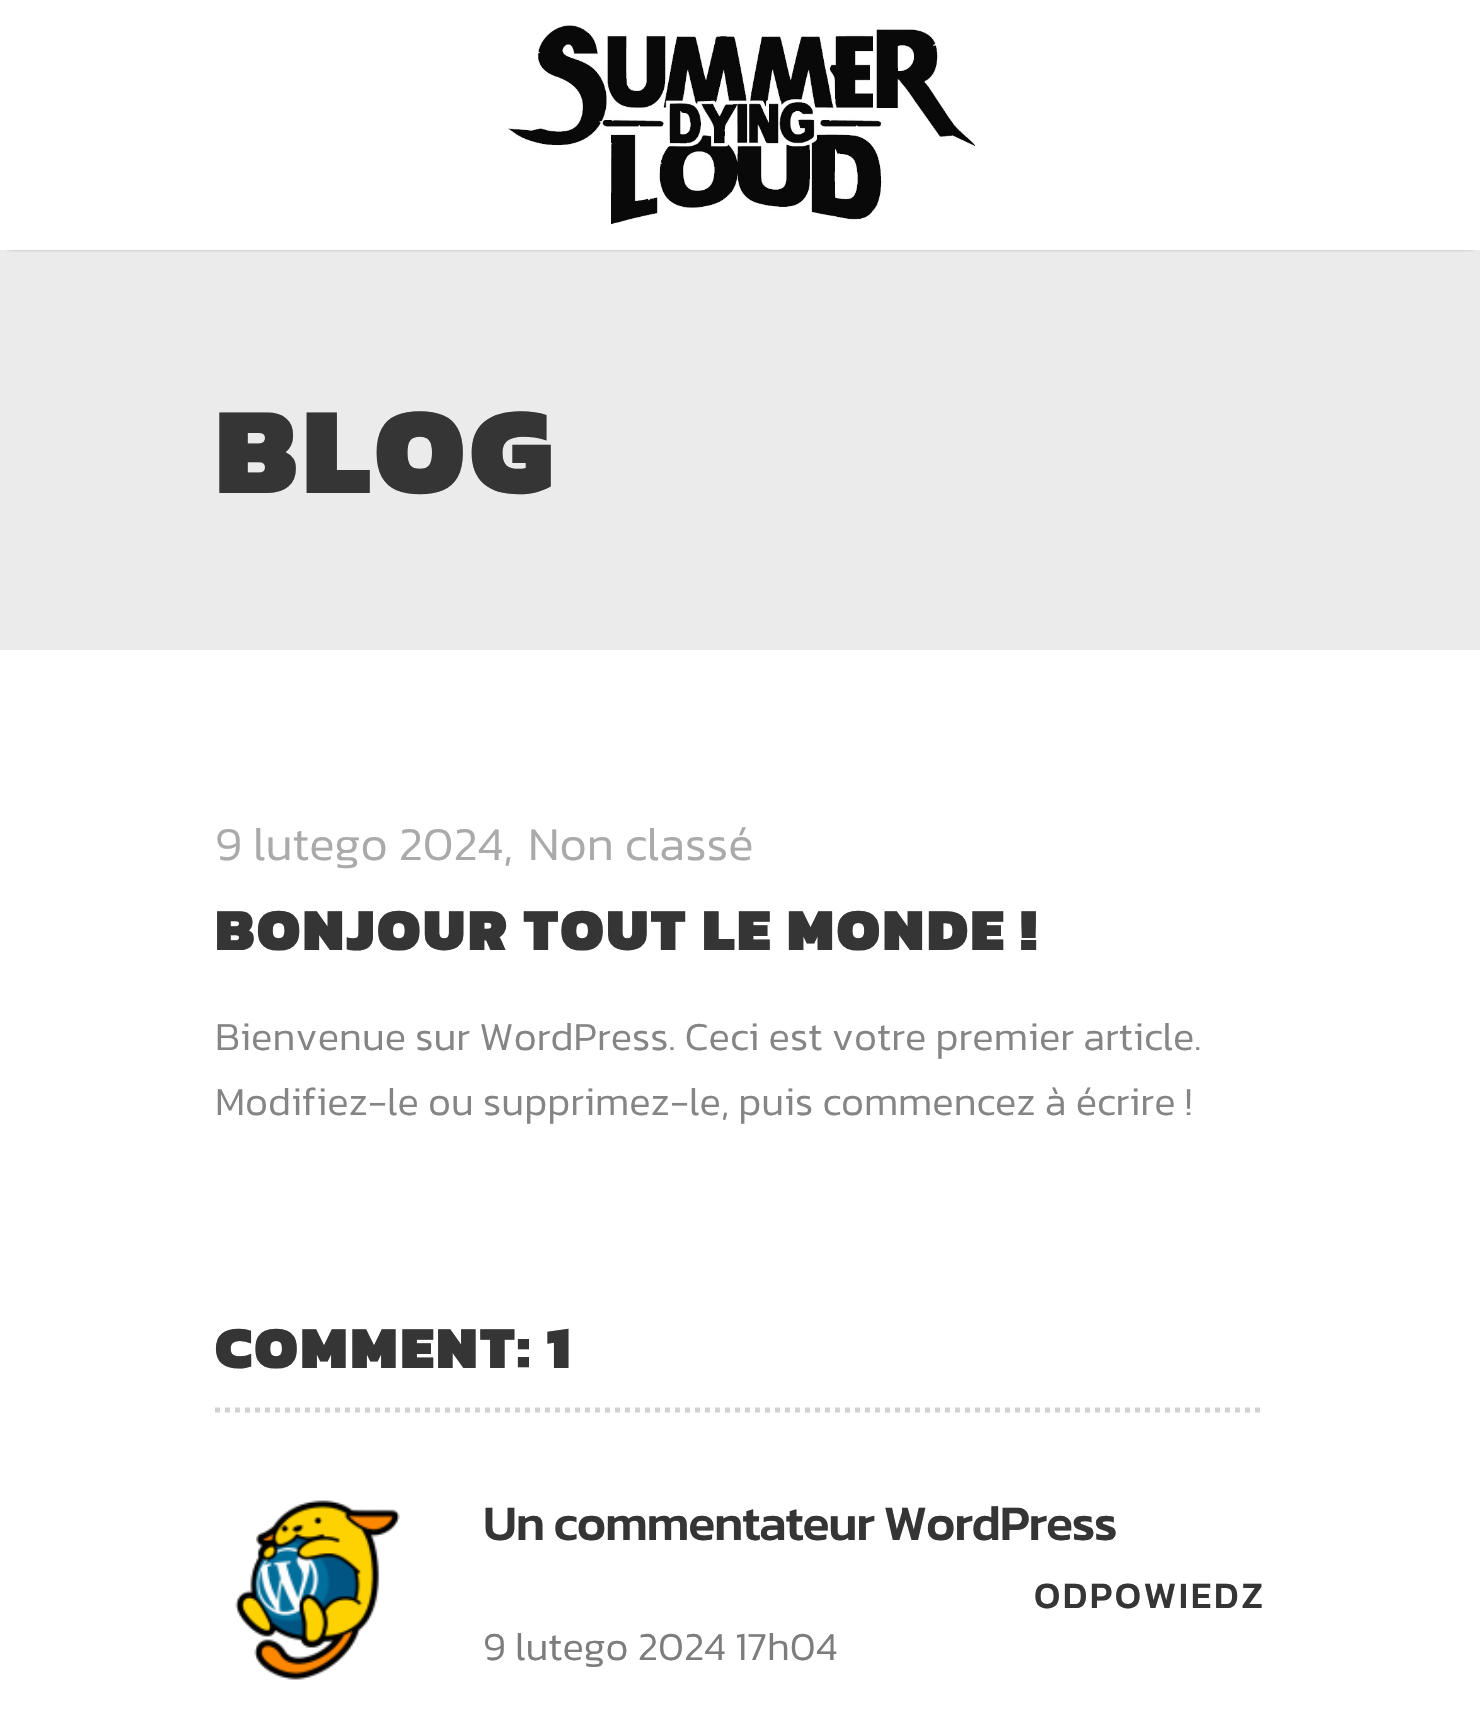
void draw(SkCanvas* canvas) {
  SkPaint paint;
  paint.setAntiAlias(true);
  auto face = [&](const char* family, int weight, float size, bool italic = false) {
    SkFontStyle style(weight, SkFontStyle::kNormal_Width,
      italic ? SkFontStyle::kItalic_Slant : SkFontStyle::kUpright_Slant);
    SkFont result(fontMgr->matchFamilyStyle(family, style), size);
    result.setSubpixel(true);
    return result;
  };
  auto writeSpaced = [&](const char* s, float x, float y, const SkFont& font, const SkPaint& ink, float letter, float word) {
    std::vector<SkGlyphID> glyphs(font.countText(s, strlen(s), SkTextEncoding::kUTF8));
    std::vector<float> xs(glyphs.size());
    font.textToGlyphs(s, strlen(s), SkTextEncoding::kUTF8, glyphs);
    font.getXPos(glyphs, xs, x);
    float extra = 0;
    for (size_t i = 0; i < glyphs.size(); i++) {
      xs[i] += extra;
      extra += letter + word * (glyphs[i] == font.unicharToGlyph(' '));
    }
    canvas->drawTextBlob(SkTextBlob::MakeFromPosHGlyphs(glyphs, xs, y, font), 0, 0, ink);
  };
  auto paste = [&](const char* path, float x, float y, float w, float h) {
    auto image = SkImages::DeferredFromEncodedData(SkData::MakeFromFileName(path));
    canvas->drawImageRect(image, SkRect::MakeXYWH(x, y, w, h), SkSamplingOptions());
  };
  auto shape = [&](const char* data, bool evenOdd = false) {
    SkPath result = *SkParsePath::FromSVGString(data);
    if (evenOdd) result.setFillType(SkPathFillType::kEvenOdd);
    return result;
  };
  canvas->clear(0xffffffff);
  paint.setColor(0xffebebeb);
  canvas->drawRect(SkRect::MakeXYWH(0, 250, 1480, 400), paint);
  canvas->save();
  canvas->clipRect(SkRect::MakeXYWH(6, 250, 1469, 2));
  paint.setColor(0x80000000);
  paint.setMaskFilter(SkMaskFilter::MakeBlur(kNormal_SkBlurStyle, 2.5f));
  canvas->drawRect(SkRect::MakeXYWH(8, 13, 1465, 235), paint);
  paint.setMaskFilter(nullptr);
  canvas->restore();
  paste("img/1.png", 508, 25, 467, 200);
  paint.setStroke(true);
  paint.setStrokeWidth(5);
  paint.setColor(0xffd2d2d2);
  paint.setPathEffect(SkDashPathEffect::Make({{5, 5}}, 0));
  canvas->drawPath(shape("M215 1410H1265"), paint);
  paint.setPathEffect(nullptr);
  paste("img/2.png", 235, 1500, 165, 180);
  auto f0 = face("Kanit", 900, 125);
  paint.setStroke(false);
  paint.setColor(0xff353535);
  writeSpaced("BLOG", 215, 493, f0, paint, 5, 0);
  auto f1 = face("Kanit", 300, 47.5f);
  paint.setColor(0xffaaaaaa);
  canvas->drawString("9 lutego 2024,", 215, 860, f1, paint);
  canvas->drawString("Non classé", 528, 860, f1, paint);
  auto f2 = face("Kanit", 900, 60);
  paint.setColor(0xff353535);
  writeSpaced("BONJOUR TOUT LE MONDE !", 215, 950, f2, paint, 2.5f, 0);
  auto f3 = face("Kanit", 300, 40);
  paint.setColor(0xff858585);
  canvas->drawString("Bienvenue sur WordPress. Ceci est votre premier article.", 215, 1050, f3, paint);
  canvas->drawString("Modifiez-le ou supprimez-le, puis commencez à écrire !", 215, 1115, f3, paint);
  paint.setColor(0xff353535);
  writeSpaced("COMMENT: 1", 215, 1368, f2, paint, 2.5f, 0);
  auto f4 = face("Kanit", 500, 50);
  writeSpaced("Un commentateur WordPress", 483, 1540, f4, paint, -1.25f, 0);
  auto f5 = face("Kanit", 500, 37.5f);
  writeSpaced("ODPOWIEDZ", 1034, 1608, f5, paint, 2.5f, 0);
  paint.setColor(0xff7d7d7d);
  canvas->drawString("9 lutego 2024 17h04", 483, 1660, f3, paint);
}
